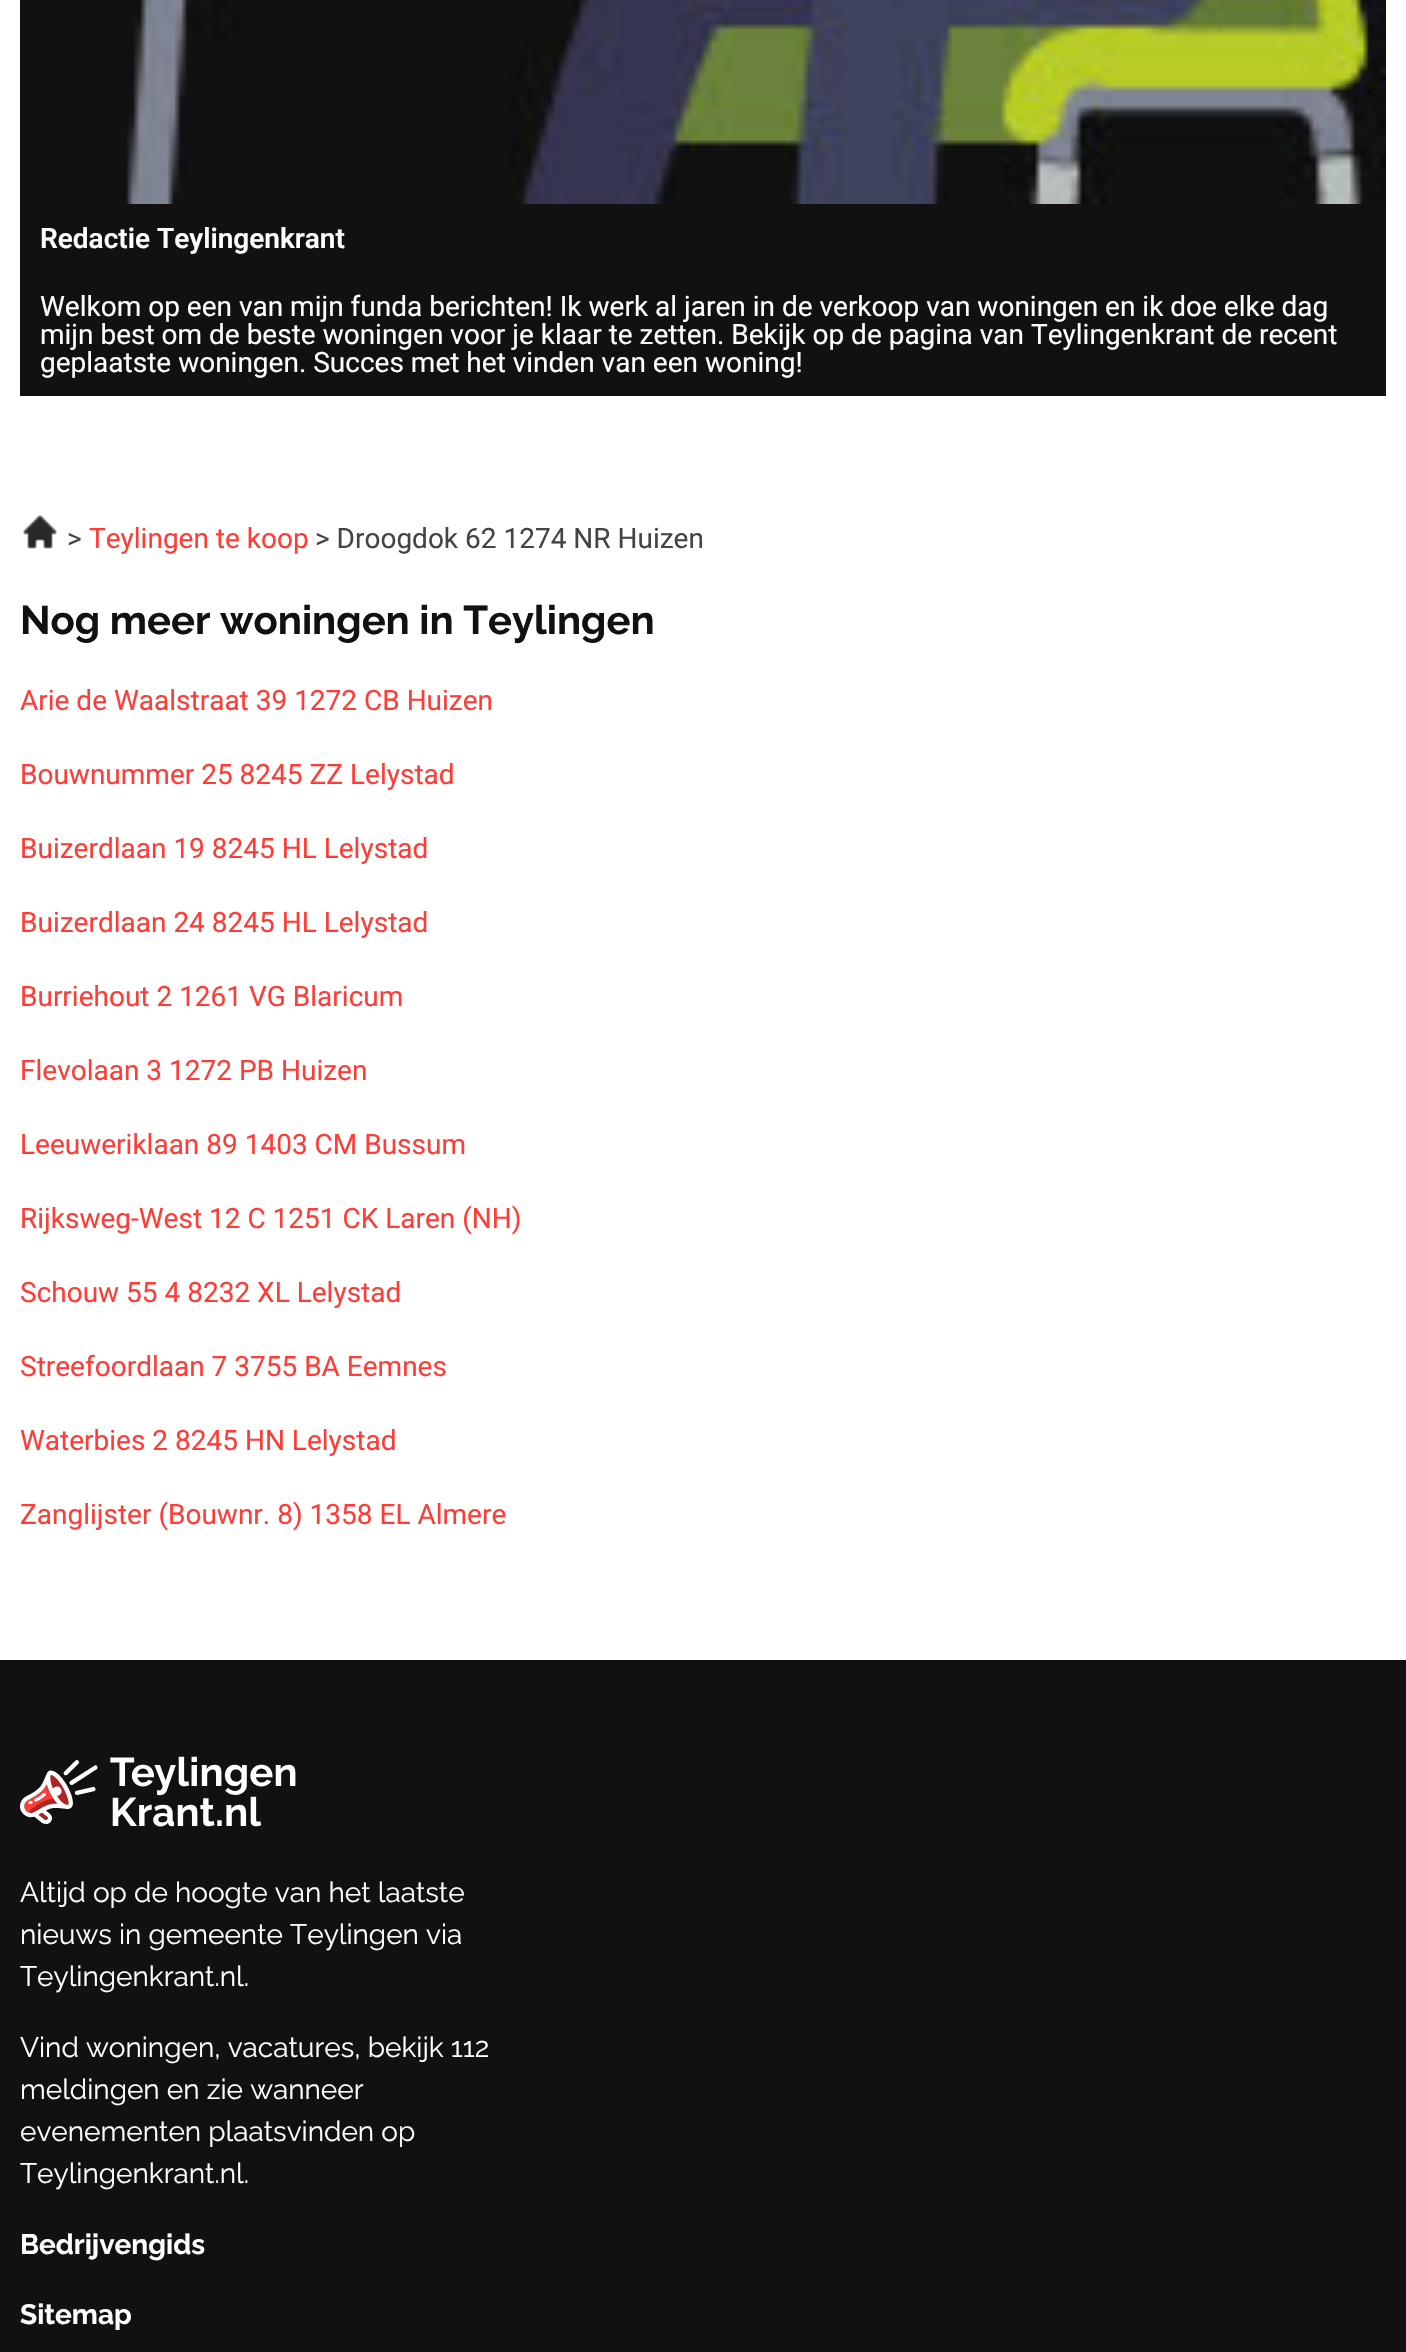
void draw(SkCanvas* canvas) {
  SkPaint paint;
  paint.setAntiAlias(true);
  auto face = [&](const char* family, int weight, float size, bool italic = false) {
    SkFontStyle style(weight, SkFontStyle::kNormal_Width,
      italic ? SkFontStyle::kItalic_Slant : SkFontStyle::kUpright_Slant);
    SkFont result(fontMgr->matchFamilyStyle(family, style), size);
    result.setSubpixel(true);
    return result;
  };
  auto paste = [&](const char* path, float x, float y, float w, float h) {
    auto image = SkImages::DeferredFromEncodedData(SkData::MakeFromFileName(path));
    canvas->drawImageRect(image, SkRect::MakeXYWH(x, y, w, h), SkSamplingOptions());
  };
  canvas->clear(0xffffffff);
  paint.setColor(0xff111111);
  canvas->drawRect(SkRect::MakeXYWH(20, 0, 1366, 396), paint);
  paste("img/1.png", 126, 0, 1260, 204);
  paste("img/2.png", 23, 515, 34, 34);
  canvas->drawRect(SkRect::MakeXYWH(0, 1660, 1406, 692), paint);
  paste("img/3.png", 20, 1756, 276, 71);
  auto f0 = face("Roboto", 600, 28);
  paint.setColor(0xffffffff);
  canvas->drawString("Redactie Teylingenkrant", 40, 248, f0, paint);
  auto f1 = face("Roboto", 400, 28);
  {
    const struct { const char* s; float x, y; } items[] = {
      {"Welkom op een van mijn funda berichten! Ik werk al jaren in de verkoop van woningen en ik doe elke dag", 40, 316},
      {"mijn best om de beste woningen voor je klaar te zetten. Bekijk op de pagina van Teylingenkrant de recent", 40, 344},
      {"geplaatste woningen. Succes met het vinden van een woning!", 40, 372},
    };
    for (auto [s, x, y] : items) {
      canvas->drawString(s, x, y, f1, paint);
    }
  }
  paint.setColor(0xff444444);
  canvas->drawString(">", 67, 548, f1, paint);
  paint.setColor(0xffff3c36);
  canvas->drawString("Teylingen te koop", 89, 548, f1, paint);
  paint.setColor(0xff444444);
  canvas->drawString("> Droogdok 62 1274 NR Huizen", 315, 548, f1, paint);
  auto f2 = face("Raleway", 700, 40);
  paint.setColor(0xff111111);
  canvas->drawString("Nog meer woningen in Teylingen", 20, 634, f2, paint);
  paint.setColor(0xffff3c36);
  {
    const struct { const char* s; float x, y; } items[] = {
      {"Arie de Waalstraat 39 1272 CB Huizen", 20, 710},
      {"Bouwnummer 25 8245 ZZ Lelystad", 20, 784},
      {"Buizerdlaan 19 8245 HL Lelystad", 20, 858},
      {"Buizerdlaan 24 8245 HL Lelystad", 20, 932},
      {"Burriehout 2 1261 VG Blaricum", 20, 1006},
      {"Flevolaan 3 1272 PB Huizen", 20, 1080},
      {"Leeuweriklaan 89 1403 CM Bussum", 20, 1154},
      {"Rijksweg-West 12 C 1251 CK Laren (NH)", 20, 1228},
      {"Schouw 55 4 8232 XL Lelystad", 20, 1302},
      {"Streefoordlaan 7 3755 BA Eemnes", 20, 1376},
      {"Waterbies 2 8245 HN Lelystad", 20, 1450},
      {"Zanglijster (Bouwnr. 8) 1358 EL Almere", 20, 1524},
    };
    for (auto [s, x, y] : items) {
      canvas->drawString(s, x, y, f1, paint);
    }
  }
  auto f3 = face("Raleway", 400, 28);
  paint.setColor(0xffffffff);
  {
    const struct { const char* s; float x, y; } items[] = {
      {"Altijd op de hoogte van het laatste", 20, 1902},
      {"nieuws in gemeente Teylingen via", 20, 1944},
      {"Teylingenkrant.nl.", 20, 1986},
      {"Vind woningen, vacatures, bekijk 112", 20, 2057},
      {"meldingen en zie wanneer", 20, 2099},
      {"evenementen plaatsvinden op", 20, 2141},
      {"Teylingenkrant.nl.", 20, 2183},
    };
    for (auto [s, x, y] : items) {
      canvas->drawString(s, x, y, f3, paint);
    }
  }
  auto f4 = face("Raleway", 700, 28);
  canvas->drawString("Bedrijvengids", 20, 2254, f4, paint);
  canvas->drawString("Sitemap", 20, 2324, f4, paint);
}
